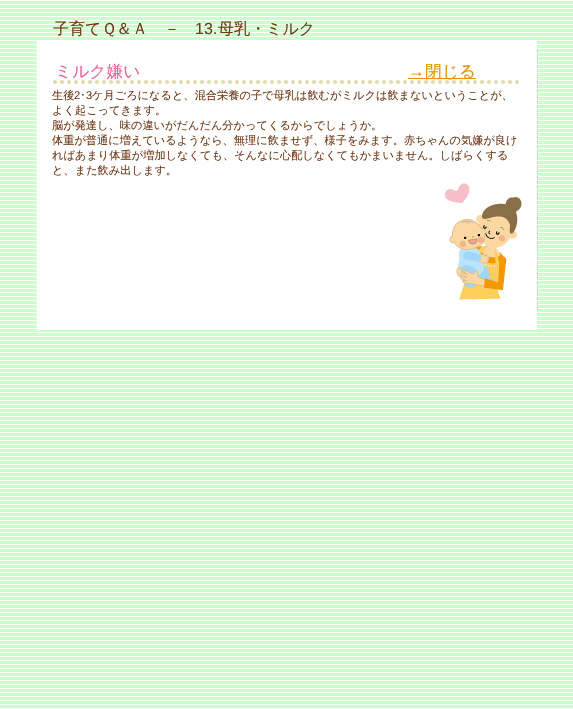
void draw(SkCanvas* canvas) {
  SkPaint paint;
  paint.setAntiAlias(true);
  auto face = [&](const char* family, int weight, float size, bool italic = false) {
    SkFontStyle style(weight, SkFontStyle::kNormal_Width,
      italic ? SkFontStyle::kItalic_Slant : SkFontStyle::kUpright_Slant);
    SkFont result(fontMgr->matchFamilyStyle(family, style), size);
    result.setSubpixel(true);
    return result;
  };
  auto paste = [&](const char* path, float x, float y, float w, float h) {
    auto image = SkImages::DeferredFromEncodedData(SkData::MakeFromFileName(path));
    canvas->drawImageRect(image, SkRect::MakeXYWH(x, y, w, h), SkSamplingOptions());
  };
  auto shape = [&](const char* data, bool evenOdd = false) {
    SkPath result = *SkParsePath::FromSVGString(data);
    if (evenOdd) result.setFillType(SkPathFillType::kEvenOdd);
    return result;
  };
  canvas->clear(0xffffffff);
  paste("img/1.png", 0, 1, 573, 707);
  paint.setColor(0xffffffff);
  canvas->drawRect(SkRect::MakeXYWH(37, 41, 500, 289), paint);
  paint.setStroke(true);
  paint.setStrokeWidth(1);
  paint.setColor(0xffd4c9bf);
  paint.setPathEffect(SkDashPathEffect::Make({{3, 2.04f}}, 0));
  canvas->drawPath(shape("M537.5 50V310"), paint);
  paint.setPathEffect(nullptr);
  paste("img/2.png", 53, 80, 466, 4);
  paint.setStroke(false);
  paint.setColor(0xffe69100);
  canvas->drawRect(SkRect::MakeXYWH(408, 78, 68, 1), paint);
  paste("img/3.png", 445, 183, 77, 117);
  auto f0 = face("WenQuanYi Zen Hei", 500, 16);
  paint.setColor(0xff723918);
  canvas->drawString("子育てＱ＆Ａ　－", 53, 34, f0, paint);
  auto f1 = face("Liberation Sans", 400, 16);
  canvas->drawString("13.", 195, 34, f1, paint);
  canvas->drawString("母乳・ミルク", 218, 34, f0, paint);
  auto f2 = face("WenQuanYi Zen Hei", 500, 16.75f);
  paint.setColor(0xffe8619e);
  canvas->drawString("ミルク嫌い", 55, 77, f2, paint);
  auto f3 = face("Liberation Sans", 400, 16.75f);
  paint.setColor(0xffe69100);
  canvas->drawString("→", 408, 77, f3, paint);
  canvas->drawString("閉じる", 425, 77, f2, paint);
  auto f4 = face("WenQuanYi Zen Hei", 500, 11.2f);
  paint.setColor(0xff723918);
  canvas->drawString("生後", 52, 99, f4, paint);
  auto f5 = face("Liberation Sans", 400, 11.2f);
  canvas->drawString("2", 74, 99, f5, paint);
  auto f6 = face("IPAPGothic", 400, 11.2f);
  canvas->drawString("･", 80, 99, f6, paint);
  canvas->drawString("3", 86, 99, f5, paint);
  {
    const struct { const char* s; float x, y; } items[] = {
      {"ケ月ごろになると、混合栄養の子で母乳は飲むがミルクは飲まないということが、", 92, 99},
      {"よく起こってきます。", 52, 114},
      {"脳が発達し、味の違いがだんだん分かってくるからでしょうか。", 52, 129},
      {"体重が普通に増えているようなら、無理に飲ませず、様子をみます。赤ちゃんの気嫌が良け", 52, 144},
      {"ればあまり体重が増加しなくても、そんなに心配しなくてもかまいません。しばらくする", 52, 159},
      {"と、また飲み出します。", 52, 174},
    };
    for (auto [s, x, y] : items) {
      canvas->drawString(s, x, y, f4, paint);
    }
  }
}
